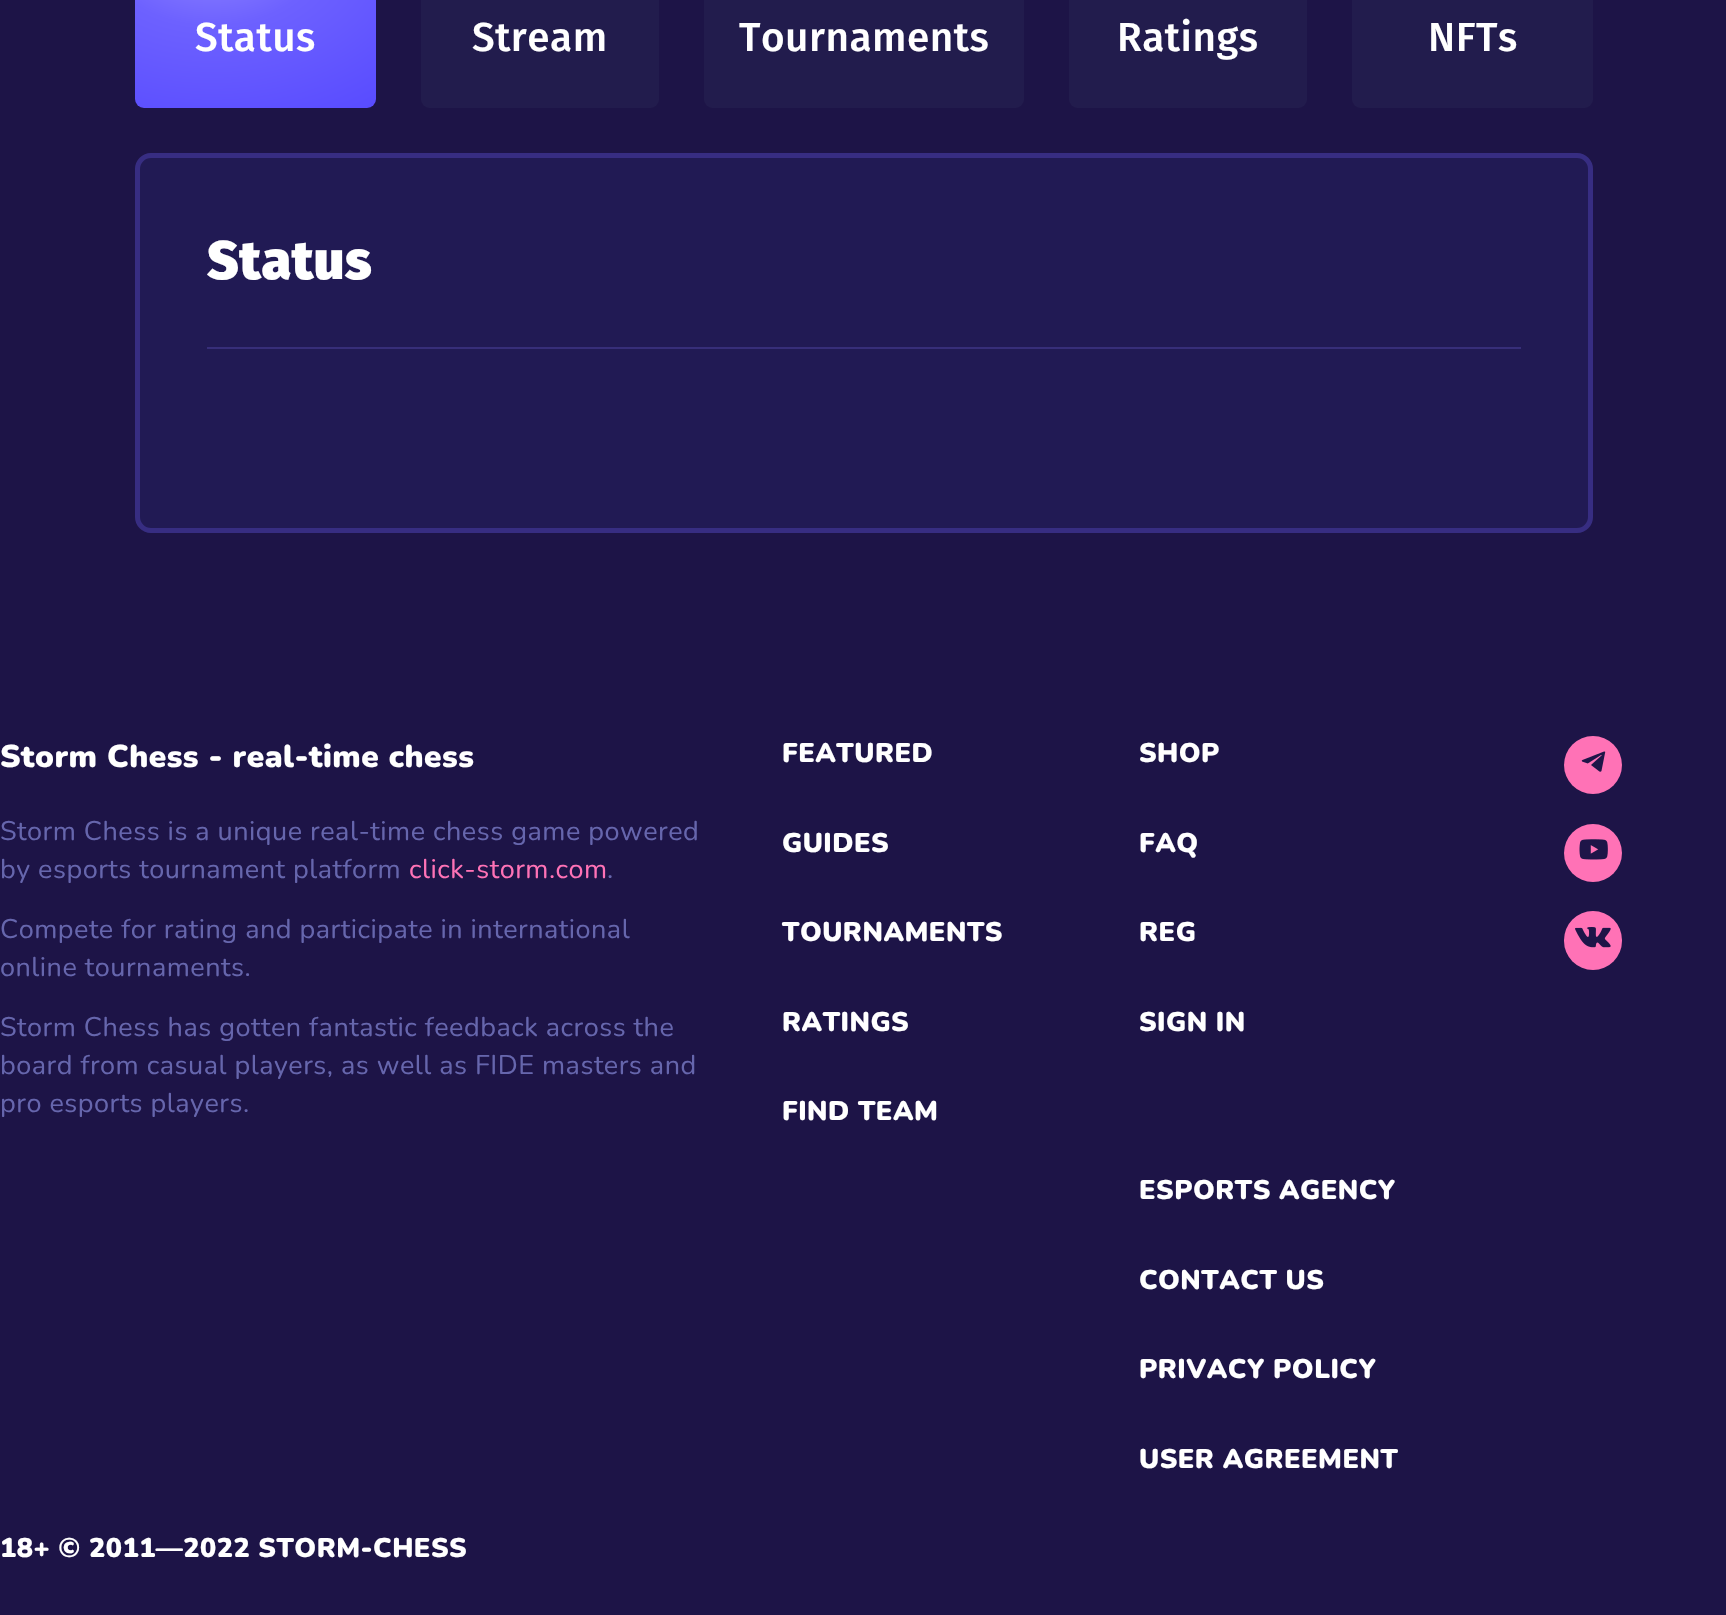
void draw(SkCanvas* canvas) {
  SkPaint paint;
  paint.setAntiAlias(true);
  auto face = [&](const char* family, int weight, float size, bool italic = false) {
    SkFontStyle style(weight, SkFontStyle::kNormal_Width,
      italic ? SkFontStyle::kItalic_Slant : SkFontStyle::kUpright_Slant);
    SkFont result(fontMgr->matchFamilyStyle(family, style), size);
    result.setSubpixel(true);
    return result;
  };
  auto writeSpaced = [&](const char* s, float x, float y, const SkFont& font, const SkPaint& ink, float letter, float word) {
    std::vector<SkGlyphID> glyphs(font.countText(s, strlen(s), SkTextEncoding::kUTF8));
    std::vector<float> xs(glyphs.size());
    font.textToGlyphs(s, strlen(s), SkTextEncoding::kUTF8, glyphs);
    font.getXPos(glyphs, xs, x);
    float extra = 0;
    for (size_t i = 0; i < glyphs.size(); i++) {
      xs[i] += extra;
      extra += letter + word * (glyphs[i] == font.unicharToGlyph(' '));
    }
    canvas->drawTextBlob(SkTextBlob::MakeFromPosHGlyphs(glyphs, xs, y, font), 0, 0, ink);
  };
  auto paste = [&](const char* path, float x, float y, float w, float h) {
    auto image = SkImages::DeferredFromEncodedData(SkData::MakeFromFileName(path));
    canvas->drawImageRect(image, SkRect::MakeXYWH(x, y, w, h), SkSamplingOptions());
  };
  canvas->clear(0xff1d1447);
  {
    const SkColor colors[] = {0xff9186ff, 0xff6d61ff, 0xff574aff};
    const float stops[] = {0, 0.34f, 0.92f};
    SkMatrix m = SkMatrix::Translate(212, -48).preScale(320, 217);
    paint.setShader(SkGradientShader::MakeRadial({0, 0}, 1, colors, stops, 3, SkTileMode::kClamp, 0, &m));
    paint.setAlpha(255);
  }
  canvas->drawRoundRect(SkRect::MakeXYWH(135, -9, 241, 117), 9, 9, paint);
  paint.setShader(nullptr);
  paint.setColor(0xff221c4d);
  canvas->drawRoundRect(SkRect::MakeXYWH(421, -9, 238, 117), 9, 9, paint);
  canvas->drawRoundRect(SkRect::MakeXYWH(704, -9, 320, 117), 9, 9, paint);
  canvas->drawRoundRect(SkRect::MakeXYWH(1069, -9, 238, 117), 9, 9, paint);
  canvas->drawRoundRect(SkRect::MakeXYWH(1352, -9, 241, 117), 9, 9, paint);
  paint.setColor(0xff211a54);
  canvas->drawRoundRect(SkRect::MakeXYWH(137.5f, 155.5f, 1453, 375), 13.5f, 13.5f, paint);
  paint.setStroke(true);
  paint.setStrokeWidth(5);
  paint.setColor(0xff372d82);
  canvas->drawRoundRect(SkRect::MakeXYWH(137.5f, 155.5f, 1453, 375), 13.5f, 13.5f, paint);
  paint.setStroke(false);
  paint.setColor(0xff372e79);
  canvas->drawRect(SkRect::MakeXYWH(207, 347, 1314, 2), paint);
  paint.setColor(0xffff72b6);
  canvas->drawCircle(1593, 765, 29, paint);
  paste("img/1.png", 1581, 751, 25, 21);
  canvas->drawCircle(1593, 853, 29, paint);
  paste("img/2.png", 1579, 839, 29, 21);
  canvas->drawRoundRect(SkRect::MakeXYWH(1564, 911, 58, 59), 29, 29, paint);
  paste("img/3.png", 1575, 927, 36, 21);
  auto f0 = face("Fira Sans", 500, 40.5f);
  paint.setColor(0xffffffff);
  {
    const struct { const char* s; float x, y; } items[] = {
      {"Status", 195, 51},
      {"Stream", 472, 51},
      {"Tournaments", 739, 51},
      {"Ratings", 1117, 51},
      {"NFTs", 1428, 51},
    };
    for (auto [s, x, y] : items) {
      writeSpaced(s, x, y, f0, paint, 0.5f, 0);
    }
  }
  auto f1 = face("Fira Sans", 900, 54);
  writeSpaced("Status", 207, 279, f1, paint, 0.5f, 0);
  auto f2 = face("Nunito", 900, 31.5f);
  writeSpaced("Storm Chess - real-time chess", 0, 767, f2, paint, 0.5f, 0);
  auto f3 = face("Nunito", 400, 27);
  paint.setColor(0xff6666ad);
  writeSpaced("Storm Chess is a unique real-time chess game powered", 0, 840, f3, paint, 0.5f, 0);
  writeSpaced("by esports tournament platform", 0, 878, f3, paint, 0.5f, 0);
  paint.setColor(0xffff72b6);
  writeSpaced("click-storm.com", 409, 878, f3, paint, 0.5f, 0);
  paint.setColor(0xff6666ad);
  {
    const struct { const char* s; float x, y; } items[] = {
      {".", 607, 878},
      {"Compete for rating and participate in international", 0, 938},
      {"online tournaments.", 0, 976},
      {"Storm Chess has gotten fantastic feedback across the", 0, 1036},
      {"board from casual players, as well as FIDE masters and", 0, 1074},
      {"pro esports players.", 0, 1112},
    };
    for (auto [s, x, y] : items) {
      writeSpaced(s, x, y, f3, paint, 0.5f, 0);
    }
  }
  auto f4 = face("Nunito", 900, 27);
  paint.setColor(0xffffffff);
  {
    const struct { const char* s; float x, y; } items[] = {
      {"FEATURED", 782, 762},
      {"GUIDES", 782, 852},
      {"TOURNAMENTS", 782, 941},
      {"RATINGS", 782, 1031},
      {"FIND TEAM", 782, 1120},
      {"SHOP", 1139, 762},
      {"FAQ", 1139, 852},
      {"REG", 1139, 941},
      {"SIGN IN", 1139, 1031},
      {"ESPORTS AGENCY", 1139, 1199},
      {"CONTACT US", 1139, 1289},
      {"PRIVACY POLICY", 1139, 1378},
      {"USER AGREEMENT", 1139, 1468},
      {"18+ © 2011—2022 STORM-CHESS", 0, 1557},
    };
    for (auto [s, x, y] : items) {
      writeSpaced(s, x, y, f4, paint, 0.5f, 0);
    }
  }
}
